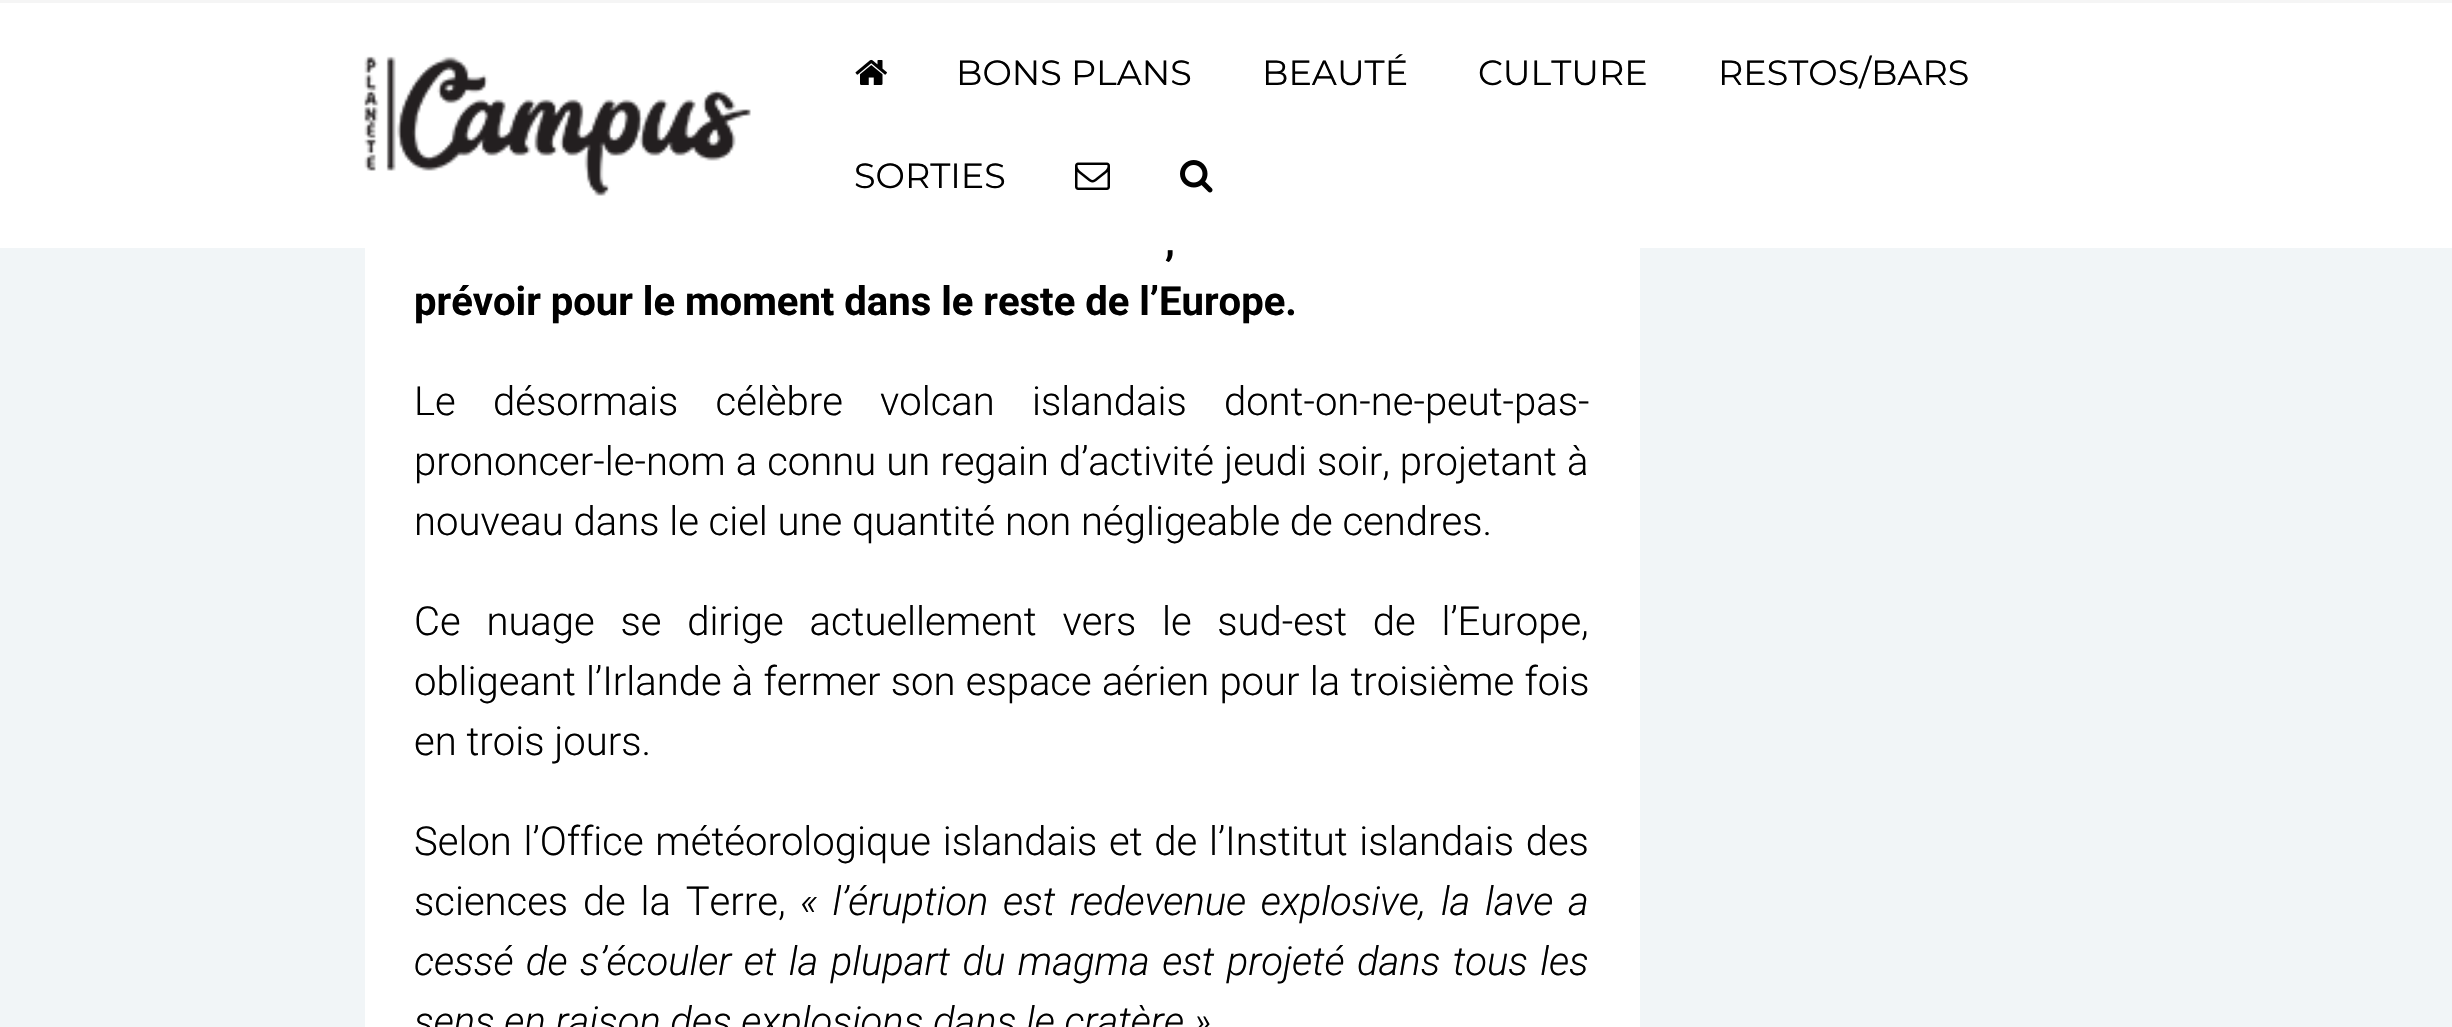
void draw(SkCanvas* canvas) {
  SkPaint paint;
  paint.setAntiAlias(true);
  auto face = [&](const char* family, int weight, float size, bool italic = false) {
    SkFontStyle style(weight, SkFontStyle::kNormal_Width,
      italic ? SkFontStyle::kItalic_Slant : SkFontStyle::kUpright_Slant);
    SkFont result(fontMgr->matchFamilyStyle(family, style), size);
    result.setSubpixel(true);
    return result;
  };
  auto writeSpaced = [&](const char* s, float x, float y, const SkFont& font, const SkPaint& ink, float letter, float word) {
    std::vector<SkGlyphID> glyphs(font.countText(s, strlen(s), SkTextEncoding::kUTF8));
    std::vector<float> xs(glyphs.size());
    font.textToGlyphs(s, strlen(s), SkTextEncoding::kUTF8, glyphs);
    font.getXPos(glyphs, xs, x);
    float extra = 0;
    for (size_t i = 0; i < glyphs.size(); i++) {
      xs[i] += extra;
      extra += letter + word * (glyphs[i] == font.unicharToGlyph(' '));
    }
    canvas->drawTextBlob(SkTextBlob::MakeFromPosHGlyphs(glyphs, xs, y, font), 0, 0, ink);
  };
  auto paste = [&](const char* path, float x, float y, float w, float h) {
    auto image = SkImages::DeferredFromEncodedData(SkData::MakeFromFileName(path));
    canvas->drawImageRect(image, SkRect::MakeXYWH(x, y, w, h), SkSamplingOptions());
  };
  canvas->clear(0xfff1f5f7);
  paint.setColor(0xffffffff);
  canvas->drawRect(SkRect::MakeXYWH(0, 3, 2452, 245), paint);
  paint.setColor(0xfff5f5f5);
  canvas->drawRect(SkRect::MakeXYWH(0, 0, 2452, 3), paint);
  paste("img/1.png", 364, 56, 387, 140);
  paste("img/2.png", 855, 59, 32, 26);
  paste("img/3.png", 1075, 162, 35, 28);
  paste("img/4.png", 1180, 160, 33, 33);
  paint.setColor(0xffffffff);
  canvas->drawRect(SkRect::MakeXYWH(365, 248, 1275, 779), paint);
  auto f0 = face("Montserrat", 400, 35);
  paint.setColor(0xff000000);
  {
    const struct { const char* s; float x, y; } items[] = {
      {"BONS PLANS", 956, 85},
      {"BEAUTÉ", 1262, 85},
      {"CULTURE", 1478, 85},
      {"RESTOS/BARS", 1718, 85},
      {"SORTIES", 854, 188},
    };
    for (auto [s, x, y] : items) {
      canvas->drawString(s, x, y, f0, paint);
    }
  }
  auto f1 = face("Roboto", 700, 40);
  writeSpaced(",", 1165, 255, f1, paint, 0, 5);
  canvas->drawString("prévoir pour le moment dans le reste de l’Europe.", 414, 315, f1, paint);
  auto f2 = face("Roboto", 300, 40);
  writeSpaced("Le désormais célèbre volcan islandais dont-on-ne-peut-pas-", 414, 415, f2, paint, 0, 27.5f);
  writeSpaced("prononcer-le-nom a connu un regain d’activité jeudi soir, projetant à", 414, 475, f2, paint, 0, 0.25f);
  canvas->drawString("nouveau dans le ciel une quantité non négligeable de cendres.", 414, 535, f2, paint);
  writeSpaced("Ce nuage se dirige actuellement vers le sud-est de l’Europe,", 414, 635, f2, paint, 0, 16);
  writeSpaced("obligeant l’Irlande à fermer son espace aérien pour la troisième fois", 414, 695, f2, paint, 0, 0.5f);
  canvas->drawString("en trois jours.", 414, 755, f2, paint);
  writeSpaced("Selon l’Office météorologique islandais et de l’Institut islandais des", 414, 855, f2, paint, 0, 2);
  writeSpaced("sciences de la Terre,", 414, 915, f2, paint, 0, 5);
  auto f3 = face("Roboto", 300, 40, true);
  writeSpaced("« l’éruption est redevenue explosive, la lave a", 800, 915, f3, paint, 0, 5);
  writeSpaced("cessé de s’écouler et la plupart du magma est projeté dans tous les", 414, 975, f3, paint, 0, 2.75f);
  canvas->drawString("sens en raison des explosions dans le cratère »", 414, 1035, f3, paint);
}
